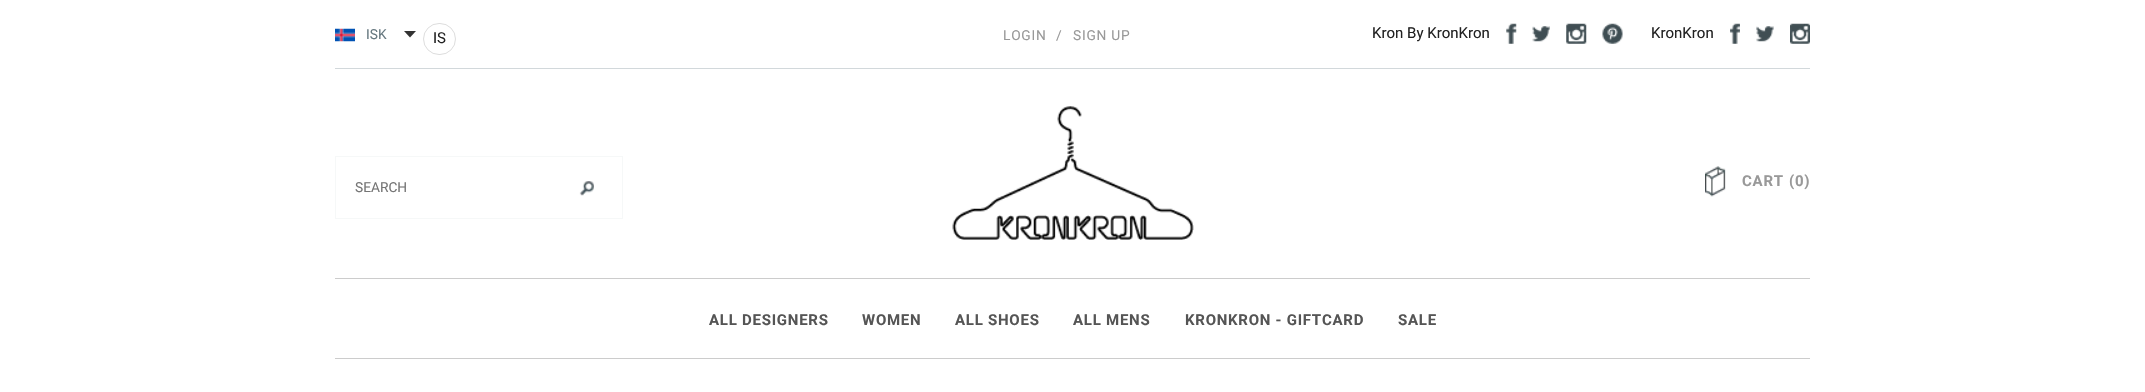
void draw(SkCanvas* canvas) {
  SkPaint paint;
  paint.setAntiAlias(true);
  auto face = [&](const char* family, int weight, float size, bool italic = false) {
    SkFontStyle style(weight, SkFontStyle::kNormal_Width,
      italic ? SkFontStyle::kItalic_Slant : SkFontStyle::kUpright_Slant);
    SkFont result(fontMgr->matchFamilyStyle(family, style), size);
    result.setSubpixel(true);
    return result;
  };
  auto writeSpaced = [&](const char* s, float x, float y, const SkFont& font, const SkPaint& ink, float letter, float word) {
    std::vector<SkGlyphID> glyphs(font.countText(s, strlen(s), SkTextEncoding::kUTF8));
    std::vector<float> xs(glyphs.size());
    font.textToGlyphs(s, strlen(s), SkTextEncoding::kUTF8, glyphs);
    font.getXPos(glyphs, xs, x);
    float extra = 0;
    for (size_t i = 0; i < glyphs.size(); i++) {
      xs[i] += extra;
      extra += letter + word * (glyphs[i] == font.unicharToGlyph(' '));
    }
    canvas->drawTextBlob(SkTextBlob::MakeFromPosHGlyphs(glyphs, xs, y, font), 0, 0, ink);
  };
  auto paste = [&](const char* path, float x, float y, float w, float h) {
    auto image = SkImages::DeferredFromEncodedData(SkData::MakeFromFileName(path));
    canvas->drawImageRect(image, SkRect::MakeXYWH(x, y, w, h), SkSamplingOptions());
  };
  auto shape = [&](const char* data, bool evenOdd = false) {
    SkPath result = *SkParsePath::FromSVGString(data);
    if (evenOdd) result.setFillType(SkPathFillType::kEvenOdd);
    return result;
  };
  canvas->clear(0xffffffff);
  paint.setColor(0xffd2d8db);
  canvas->drawRect(SkRect::MakeXYWH(335, 68, 1475, 1), paint);
  paste("img/1.png", 335, 28, 20, 14);
  paint.setColor(0xff333333);
  canvas->drawPath(shape("M404 31H416L410 37.5Z"), paint);
  paint.setStroke(true);
  paint.setStrokeWidth(1);
  paint.setColor(0xffdddddd);
  canvas->drawRoundRect(SkRect::MakeXYWH(423.5f, 23.5f, 32, 31), 15.5f, 15.5f, paint);
  paste("img/2.png", 1506, 23, 11, 21);
  paste("img/3.png", 1532, 26, 18, 16);
  paste("img/4.png", 1566, 23, 21, 21);
  paste("img/5.png", 1602, 23, 21, 21);
  paste("img/6.png", 1730, 23, 10, 21);
  paste("img/7.png", 1756, 26, 18, 16);
  paste("img/8.png", 1790, 23, 20, 21);
  paste("img/9.png", 1705, 166, 21, 31);
  paint.setStroke(false);
  paint.setColor(0xffcccccc);
  canvas->drawRect(SkRect::MakeXYWH(335, 278, 1475, 1), paint);
  paint.setStroke(true);
  paint.setColor(0xfff6f8f8);
  canvas->drawRect(SkRect::MakeXYWH(335.5f, 156.5f, 287, 62), paint);
  paste("img/10.png", 579, 181, 15, 15);
  paste("img/11.png", 952, 106, 242, 134);
  paint.setStroke(false);
  paint.setColor(0xffcccccc);
  canvas->drawRect(SkRect::MakeXYWH(335, 358, 1475, 1), paint);
  auto f0 = face("Roboto", 400, 13.75f);
  paint.setColor(0xff66787f);
  canvas->drawString("ISK", 366, 39, f0, paint);
  auto f1 = face("Roboto", 400, 15);
  paint.setColor(0xff222222);
  canvas->drawString("IS", 433, 43, f1, paint);
  paint.setColor(0xff999999);
  {
    const struct { const char* s; float x, y; } items[] = {
      {"LOGIN", 1003, 40},
      {"/", 1056, 40},
      {"SIGN UP", 1073, 40},
    };
    for (auto [s, x, y] : items) {
      writeSpaced(s, x, y, f0, paint, 0.75f, 0);
    }
  }
  paint.setColor(0xff222222);
  canvas->drawString("Kron By KronKron", 1372, 38, f1, paint);
  canvas->drawString("KronKron", 1651, 38, f1, paint);
  auto f2 = face("Roboto", 700, 15);
  paint.setColor(0xff999999);
  writeSpaced("CART", 1742, 186, f2, paint, 0.75f, 0);
  writeSpaced("(0)", 1789, 186, f2, paint, 0.75f, 0);
  paint.setColor(0xff757575);
  canvas->drawString("SEARCH", 355, 192, f0, paint);
  paint.setColor(0xff555555);
  {
    const struct { const char* s; float x, y; } items[] = {
      {"ALL DESIGNERS", 709, 325},
      {"WOMEN", 862, 325},
      {"ALL SHOES", 955, 325},
      {"ALL MENS", 1073, 325},
      {"KRONKRON - GIFTCARD", 1185, 325},
      {"SALE", 1398, 325},
    };
    for (auto [s, x, y] : items) {
      writeSpaced(s, x, y, f2, paint, 0.75f, 0);
    }
  }
}
